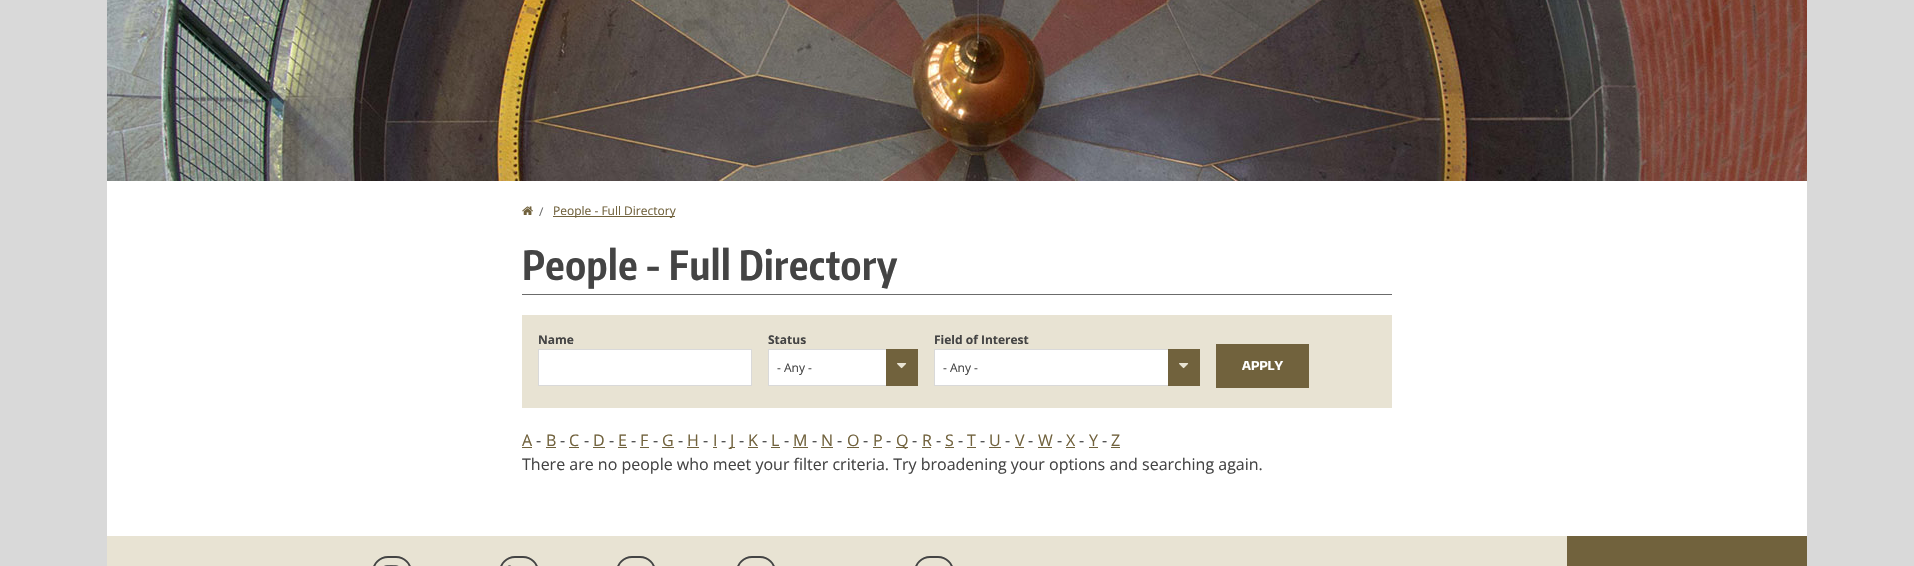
void draw(SkCanvas* canvas) {
  SkPaint paint;
  paint.setAntiAlias(true);
  auto face = [&](const char* family, int weight, float size, bool italic = false) {
    SkFontStyle style(weight, SkFontStyle::kNormal_Width,
      italic ? SkFontStyle::kItalic_Slant : SkFontStyle::kUpright_Slant);
    SkFont result(fontMgr->matchFamilyStyle(family, style), size);
    result.setSubpixel(true);
    return result;
  };
  auto writeSpaced = [&](const char* s, float x, float y, const SkFont& font, const SkPaint& ink, float letter, float word) {
    std::vector<SkGlyphID> glyphs(font.countText(s, strlen(s), SkTextEncoding::kUTF8));
    std::vector<float> xs(glyphs.size());
    font.textToGlyphs(s, strlen(s), SkTextEncoding::kUTF8, glyphs);
    font.getXPos(glyphs, xs, x);
    float extra = 0;
    for (size_t i = 0; i < glyphs.size(); i++) {
      xs[i] += extra;
      extra += letter + word * (glyphs[i] == font.unicharToGlyph(' '));
    }
    canvas->drawTextBlob(SkTextBlob::MakeFromPosHGlyphs(glyphs, xs, y, font), 0, 0, ink);
  };
  auto paste = [&](const char* path, float x, float y, float w, float h) {
    auto image = SkImages::DeferredFromEncodedData(SkData::MakeFromFileName(path));
    canvas->drawImageRect(image, SkRect::MakeXYWH(x, y, w, h), SkSamplingOptions());
  };
  canvas->clear(0xffd9d9d9);
  paint.setColor(0xffffffff);
  canvas->drawRect(SkRect::MakeXYWH(107, 181, 1700, 355), paint);
  paste("img/1.png", 107, 0, 1700, 181);
  paste("img/2.png", 522, 206, 11, 9);
  {
    const struct { float x, y, w, h; SkColor color; } items[] = {
      {553, 216, 122, 1, 0xff71623d},
      {522, 294, 870, 1, 0xff6b6b6b},
      {522, 315, 870, 93, 0xffe8e3d3},
    };
    for (auto [x, y, w, h, color] : items) {
      paint.setColor(color);
      canvas->drawRect(SkRect::MakeXYWH(x, y, w, h), paint);
    }
  }
  paint.setColor(0xffffffff);
  canvas->drawRect(SkRect::MakeXYWH(538.5f, 349.5f, 213, 36), paint);
  paint.setStroke(true);
  paint.setStrokeWidth(1);
  paint.setColor(0xffd9d9d9);
  canvas->drawRect(SkRect::MakeXYWH(538.5f, 349.5f, 213, 36), paint);
  paint.setStroke(false);
  paint.setColor(0xffffffff);
  canvas->drawRect(SkRect::MakeXYWH(769, 350, 117, 35), paint);
  paint.setStroke(true);
  paint.setColor(0xffd9d9d9);
  canvas->drawRect(SkRect::MakeXYWH(768.5f, 349.5f, 149, 36), paint);
  paint.setStroke(false);
  paint.setColor(0xff71623d);
  canvas->drawRect(SkRect::MakeXYWH(886, 349, 32, 37), paint);
  paste("img/3.png", 897, 363, 10, 6);
  paint.setColor(0xffffffff);
  canvas->drawRect(SkRect::MakeXYWH(935, 350, 233, 35), paint);
  paint.setStroke(true);
  paint.setColor(0xffd9d9d9);
  canvas->drawRect(SkRect::MakeXYWH(934.5f, 349.5f, 265, 36), paint);
  paint.setStroke(false);
  paint.setColor(0xff71623d);
  canvas->drawRect(SkRect::MakeXYWH(1168, 349, 32, 37), paint);
  paste("img/3.png", 1179, 363, 10, 6);
  {
    const struct { float x, y, w, h; SkColor color; } items[] = {
      {1216, 344, 93, 44, 0xff71623d},
      {522, 447, 10, 1, 0xff71623d},
      {546, 447, 10, 1, 0xff71623d},
      {569, 447, 10, 1, 0xff71623d},
      {593, 447, 12, 1, 0xff71623d},
      {618, 447, 9, 1, 0xff71623d},
      {640, 447, 9, 1, 0xff71623d},
      {662, 447, 12, 1, 0xff71623d},
      {687, 447, 12, 1, 0xff71623d},
      {713, 447, 4, 1, 0xff71623d},
      {730, 447, 5, 1, 0xff71623d},
      {748, 447, 10, 1, 0xff71623d},
      {771, 447, 9, 1, 0xff71623d},
      {793, 447, 15, 1, 0xff71623d},
      {821, 447, 12, 1, 0xff71623d},
      {847, 447, 12, 1, 0xff71623d},
      {873, 447, 9, 1, 0xff71623d},
      {896, 447, 12, 1, 0xff71623d},
      {922, 447, 9, 1, 0xff71623d},
      {945, 447, 9, 1, 0xff71623d},
      {967, 447, 9, 1, 0xff71623d},
      {989, 447, 12, 1, 0xff71623d},
      {1015, 447, 9, 1, 0xff71623d},
      {1038, 447, 14, 1, 0xff71623d},
      {1066, 447, 9, 1, 0xff71623d},
      {1089, 447, 9, 1, 0xff71623d},
      {1111, 447, 9, 1, 0xff71623d},
      {107, 536, 1460, 30, 0xffe8e3d3},
      {1567, 536, 240, 30, 0xff71623d},
    };
    for (auto [x, y, w, h, color] : items) {
      paint.setColor(color);
      canvas->drawRect(SkRect::MakeXYWH(x, y, w, h), paint);
    }
  }
  paint.setStroke(true);
  paint.setStrokeWidth(2);
  paint.setColor(0xff444444);
  canvas->drawRoundRect(SkRect::MakeXYWH(373, 557, 38, 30), 19, 19, paint);
  paste("img/4.png", 384, 565, 15, 1);
  canvas->drawRoundRect(SkRect::MakeXYWH(500, 557, 38, 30), 19, 19, paint);
  paste("img/5.png", 508, 565, 3, 1);
  canvas->drawRoundRect(SkRect::MakeXYWH(617, 557, 38, 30), 19, 19, paint);
  canvas->drawRoundRect(SkRect::MakeXYWH(737, 557, 38, 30), 19, 19, paint);
  canvas->drawRoundRect(SkRect::MakeXYWH(915, 557, 38, 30), 19, 19, paint);
  auto f0 = face("Open Sans", 400, 12);
  paint.setStroke(false);
  paint.setColor(0xff6b6b6b);
  canvas->drawString("/", 539, 216, f0, paint);
  paint.setColor(0xff71623d);
  canvas->drawString("People - Full Directory", 553, 215, f0, paint);
  auto f1 = face("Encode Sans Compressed", 700, 40);
  paint.setColor(0xff444444);
  writeSpaced("People - Full Directory", 522, 280, f1, paint, 0.5f, 0);
  auto f2 = face("Open Sans", 700, 12);
  canvas->drawString("Name", 538, 344, f2, paint);
  canvas->drawString("Status", 768, 344, f2, paint);
  canvas->drawString("- Any -", 777, 372, f0, paint);
  canvas->drawString("Field of Interest", 934, 344, f2, paint);
  canvas->drawString("- Any -", 943, 372, f0, paint);
  auto f3 = face("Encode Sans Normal", 700, 12);
  paint.setColor(0xffffffff);
  canvas->drawString("APPLY", 1242, 370, f3, paint);
  auto f4 = face("Open Sans", 400, 16);
  paint.setColor(0xff71623d);
  canvas->drawString("A", 522, 446, f4, paint);
  paint.setColor(0xff444444);
  canvas->drawString("-", 536, 446, f4, paint);
  paint.setColor(0xff71623d);
  canvas->drawString("B", 546, 446, f4, paint);
  paint.setColor(0xff444444);
  canvas->drawString("-", 560, 446, f4, paint);
  paint.setColor(0xff71623d);
  canvas->drawString("C", 569, 446, f4, paint);
  paint.setColor(0xff444444);
  canvas->drawString("-", 584, 446, f4, paint);
  paint.setColor(0xff71623d);
  canvas->drawString("D", 593, 446, f4, paint);
  paint.setColor(0xff444444);
  canvas->drawString("-", 609, 446, f4, paint);
  paint.setColor(0xff71623d);
  canvas->drawString("E", 618, 446, f4, paint);
  paint.setColor(0xff444444);
  canvas->drawString("-", 631, 446, f4, paint);
  paint.setColor(0xff71623d);
  canvas->drawString("F", 640, 446, f4, paint);
  paint.setColor(0xff444444);
  canvas->drawString("-", 653, 446, f4, paint);
  paint.setColor(0xff71623d);
  canvas->drawString("G", 662, 446, f4, paint);
  paint.setColor(0xff444444);
  canvas->drawString("-", 678, 446, f4, paint);
  paint.setColor(0xff71623d);
  canvas->drawString("H", 687, 446, f4, paint);
  paint.setColor(0xff444444);
  canvas->drawString("-", 703, 446, f4, paint);
  paint.setColor(0xff71623d);
  canvas->drawString("I", 713, 446, f4, paint);
  paint.setColor(0xff444444);
  canvas->drawString("-", 721, 446, f4, paint);
  paint.setColor(0xff71623d);
  canvas->drawString("J", 730, 446, f4, paint);
  paint.setColor(0xff444444);
  canvas->drawString("-", 739, 446, f4, paint);
  paint.setColor(0xff71623d);
  canvas->drawString("K", 748, 446, f4, paint);
  paint.setColor(0xff444444);
  canvas->drawString("-", 762, 446, f4, paint);
  paint.setColor(0xff71623d);
  canvas->drawString("L", 771, 446, f4, paint);
  paint.setColor(0xff444444);
  canvas->drawString("-", 784, 446, f4, paint);
  paint.setColor(0xff71623d);
  canvas->drawString("M", 793, 446, f4, paint);
  paint.setColor(0xff444444);
  canvas->drawString("-", 812, 446, f4, paint);
  paint.setColor(0xff71623d);
  canvas->drawString("N", 821, 446, f4, paint);
  paint.setColor(0xff444444);
  canvas->drawString("-", 837, 446, f4, paint);
  paint.setColor(0xff71623d);
  canvas->drawString("O", 847, 446, f4, paint);
  paint.setColor(0xff444444);
  canvas->drawString("-", 863, 446, f4, paint);
  paint.setColor(0xff71623d);
  canvas->drawString("P", 873, 446, f4, paint);
  paint.setColor(0xff444444);
  canvas->drawString("-", 886, 446, f4, paint);
  paint.setColor(0xff71623d);
  canvas->drawString("Q", 896, 446, f4, paint);
  paint.setColor(0xff444444);
  canvas->drawString("-", 912, 446, f4, paint);
  paint.setColor(0xff71623d);
  canvas->drawString("R", 922, 446, f4, paint);
  paint.setColor(0xff444444);
  canvas->drawString("-", 936, 446, f4, paint);
  paint.setColor(0xff71623d);
  canvas->drawString("S", 945, 446, f4, paint);
  paint.setColor(0xff444444);
  canvas->drawString("-", 958, 446, f4, paint);
  paint.setColor(0xff71623d);
  canvas->drawString("T", 967, 446, f4, paint);
  paint.setColor(0xff444444);
  canvas->drawString("-", 980, 446, f4, paint);
  paint.setColor(0xff71623d);
  canvas->drawString("U", 989, 446, f4, paint);
  paint.setColor(0xff444444);
  canvas->drawString("-", 1005, 446, f4, paint);
  paint.setColor(0xff71623d);
  canvas->drawString("V", 1015, 446, f4, paint);
  paint.setColor(0xff444444);
  canvas->drawString("-", 1028, 446, f4, paint);
  paint.setColor(0xff71623d);
  canvas->drawString("W", 1038, 446, f4, paint);
  paint.setColor(0xff444444);
  canvas->drawString("-", 1057, 446, f4, paint);
  paint.setColor(0xff71623d);
  canvas->drawString("X", 1066, 446, f4, paint);
  paint.setColor(0xff444444);
  canvas->drawString("-", 1079, 446, f4, paint);
  paint.setColor(0xff71623d);
  canvas->drawString("Y", 1089, 446, f4, paint);
  paint.setColor(0xff444444);
  canvas->drawString("-", 1102, 446, f4, paint);
  paint.setColor(0xff71623d);
  canvas->drawString("Z", 1111, 446, f4, paint);
  paint.setColor(0xff444444);
  canvas->drawString("There are no people who meet your filter criteria. Try broadening your options and searching again.", 522, 470, f4, paint);
}
